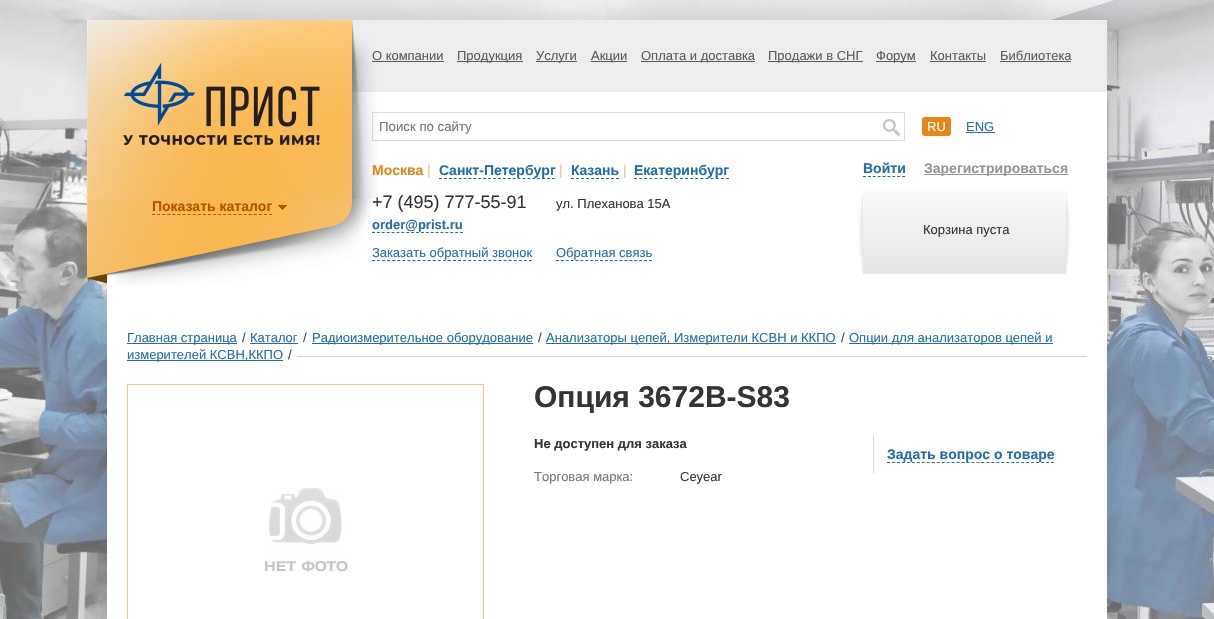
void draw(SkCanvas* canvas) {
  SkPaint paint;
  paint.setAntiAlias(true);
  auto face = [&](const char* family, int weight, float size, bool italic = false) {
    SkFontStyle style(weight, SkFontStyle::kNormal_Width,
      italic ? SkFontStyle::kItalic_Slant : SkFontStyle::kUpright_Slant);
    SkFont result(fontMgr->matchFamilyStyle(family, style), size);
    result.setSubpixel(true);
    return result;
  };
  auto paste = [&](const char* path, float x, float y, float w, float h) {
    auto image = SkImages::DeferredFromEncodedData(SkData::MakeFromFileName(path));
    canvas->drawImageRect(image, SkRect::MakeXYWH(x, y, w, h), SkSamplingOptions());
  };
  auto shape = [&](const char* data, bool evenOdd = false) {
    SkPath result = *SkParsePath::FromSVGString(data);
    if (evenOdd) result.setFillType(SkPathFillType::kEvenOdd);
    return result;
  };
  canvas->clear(0xffffffff);
  paste("img/1.png", 0, 0, 1214, 619);
  paint.setColor(0x40323232);
  paint.setMaskFilter(SkMaskFilter::MakeBlur(kNormal_SkBlurStyle, 17.5f));
  canvas->drawRect(SkRect::MakeXYWH(107, 20, 1000, 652), paint);
  paint.setMaskFilter(nullptr);
  {
    const struct { float x, y, w, h; SkColor color; } items[] = {
      {107, 92, 1000, 527, 0xffffffff},
      {352, 20, 755, 72, 0xffededed},
      {372, 61, 72, 1, 0xff5a5a5a},
      {457, 61, 66, 1, 0xff5a5a5a},
      {536, 61, 41, 1, 0xff5a5a5a},
      {591, 61, 36, 1, 0xff5a5a5a},
      {641, 61, 114, 1, 0xff5a5a5a},
      {768, 61, 95, 1, 0xff5a5a5a},
      {876, 61, 40, 1, 0xff5a5a5a},
      {930, 61, 56, 1, 0xff5a5a5a},
      {1000, 61, 71, 1, 0xff5a5a5a},
    };
    for (auto [x, y, w, h, color] : items) {
      paint.setColor(color);
      canvas->drawRect(SkRect::MakeXYWH(x, y, w, h), paint);
    }
  }
  paste("img/4.png", 87, 199, 285, 87);
  paint.setStroke(true);
  paint.setStrokeWidth(1);
  paint.setColor(0xffb65100);
  paint.setPathEffect(SkDashPathEffect::Make({{3, 2.09f}}, 0));
  canvas->drawPath(shape("M152 214.5H272"), paint);
  paint.setPathEffect(nullptr);
  paste("img/5.png", 278, 205, 9, 5);
  paint.setColor(0xffdbdde2);
  canvas->drawRect(SkRect::MakeXYWH(372.5f, 112.5f, 532, 28), paint);
  paste("img/6.png", 883, 119, 17, 18);
  paint.setStroke(false);
  paint.setColor(0xffe58617);
  canvas->drawRoundRect(SkRect::MakeXYWH(922, 117, 29, 19), 3, 3, paint);
  paint.setColor(0xff226da8);
  canvas->drawRect(SkRect::MakeXYWH(966, 132, 29, 1), paint);
  paint.setStroke(true);
  paint.setPathEffect(SkDashPathEffect::Make({{3, 1.91f}}, 0));
  canvas->drawPath(shape("M439 178.5H555"), paint);
  paint.setPathEffect(nullptr);
  paint.setPathEffect(SkDashPathEffect::Make({{3, 2}}, 0));
  canvas->drawPath(shape("M571 178.5H619"), paint);
  paint.setPathEffect(nullptr);
  paint.setPathEffect(SkDashPathEffect::Make({{3, 2.11f}}, 0));
  canvas->drawPath(shape("M634 178.5H729"), paint);
  paint.setPathEffect(nullptr);
  paint.setPathEffect(SkDashPathEffect::Make({{3, 1.89f}}, 0));
  canvas->drawPath(shape("M372 232.5H463"), paint);
  paint.setPathEffect(nullptr);
  paint.setPathEffect(SkDashPathEffect::Make({{3, 2.06f}}, 0));
  canvas->drawPath(shape("M372 260.5H532"), paint);
  paint.setPathEffect(nullptr);
  paint.setPathEffect(SkDashPathEffect::Make({{3, 1.89f}}, 0));
  canvas->drawPath(shape("M556 260.5H652"), paint);
  paint.setPathEffect(nullptr);
  paint.setPathEffect(SkDashPathEffect::Make({{3, 1.88f}}, 0));
  canvas->drawPath(shape("M863 176.5H905"), paint);
  paint.setPathEffect(nullptr);
  paint.setStroke(false);
  paint.setColor(0xff969696);
  canvas->drawRect(SkRect::MakeXYWH(924, 174, 144, 1), paint);
  paste("img/7.png", 867, 190, 196, 85);
  paste("img/8.png", 858, 190, 9, 85);
  paste("img/9.png", 1063, 190, 8, 85);
  {
    const struct { float x, y, w, h; SkColor color; } items[] = {
      {297, 356, 790, 1, 0xffd9d9d9},
      {127, 343, 110, 1, 0xff226da8},
      {250, 343, 48, 1, 0xff226da8},
      {312, 343, 221, 1, 0xff226da8},
      {546, 343, 290, 1, 0xff226da8},
      {849, 343, 204, 1, 0xff226da8},
      {127, 360, 156, 1, 0xff226da8},
    };
    for (auto [x, y, w, h, color] : items) {
      paint.setColor(color);
      canvas->drawRect(SkRect::MakeXYWH(x, y, w, h), paint);
    }
  }
  paint.setStroke(true);
  paint.setColor(0xfff2c28b);
  canvas->drawRect(SkRect::MakeXYWH(127.5f, 384.5f, 356, 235), paint);
  paste("img/10.png", 264, 488, 84, 84);
  paint.setStroke(false);
  paint.setColor(0xffd9d9d9);
  canvas->drawRect(SkRect::MakeXYWH(873, 435, 1, 39), paint);
  paint.setStroke(true);
  paint.setColor(0xff226da8);
  paint.setPathEffect(SkDashPathEffect::Make({{3, 1.97f}}, 0));
  canvas->drawPath(shape("M887 462.5H1054"), paint);
  paint.setPathEffect(nullptr);
  auto f0 = face("Liberation Sans", 400, 13);
  paint.setStroke(false);
  paint.setColor(0xff5a5a5a);
  {
    const struct { const char* s; float x, y; } items[] = {
      {"О компании", 372, 60},
      {"Продукция", 457, 60},
      {"Услуги", 536, 60},
      {"Акции", 591, 60},
      {"Оплата и доставка", 641, 60},
      {"Продажи в СНГ", 768, 60},
      {"Форум", 876, 60},
      {"Контакты", 930, 60},
      {"Библиотека", 1000, 60},
    };
    for (auto [s, x, y] : items) {
      canvas->drawString(s, x, y, f0, paint);
    }
  }
  auto f1 = face("Liberation Sans", 700, 14);
  paint.setColor(0xffb65100);
  canvas->drawString("Показать каталог", 152, 211, f1, paint);
  auto f2 = face("Liberation Sans", 400, 13.25f);
  paint.setColor(0xff777777);
  canvas->drawString("Поиск по сайту", 379, 131, f2, paint);
  paint.setColor(0xffffffff);
  canvas->drawString("RU", 927, 131, f0, paint);
  paint.setColor(0xff226da8);
  canvas->drawString("ENG", 966, 131, f0, paint);
  paint.setColor(0xffe58617);
  canvas->drawString("Москва", 372, 175, f1, paint);
  auto f3 = face("Liberation Sans", 400, 14);
  paint.setColor(0xfff2c28b);
  canvas->drawString("|", 427, 175, f3, paint);
  paint.setColor(0xff226da8);
  canvas->drawString("Санкт-Петербург", 439, 175, f1, paint);
  paint.setColor(0xfff2c28b);
  canvas->drawString("|", 559, 175, f3, paint);
  paint.setColor(0xff226da8);
  canvas->drawString("Казань", 571, 175, f1, paint);
  paint.setColor(0xfff2c28b);
  canvas->drawString("|", 623, 175, f3, paint);
  paint.setColor(0xff226da8);
  canvas->drawString("Екатеринбург", 634, 175, f1, paint);
  auto f4 = face("Liberation Sans", 400, 18);
  paint.setColor(0xff343434);
  canvas->drawString("+7 (495) 777-55-91", 372, 208, f4, paint);
  paste("img/2.png", 87, 20, 291, 179);
  paste("img/3.png", 123, 62, 197, 83);
  auto f5 = face("Liberation Sans", 700, 13);
  paint.setColor(0xff226da8);
  canvas->drawString("order@prist.ru", 372, 229, f5, paint);
  paint.setColor(0xff343434);
  canvas->drawString("ул. Плеханова 15А", 556, 208, f0, paint);
  paint.setColor(0xff226da8);
  canvas->drawString("Заказать обратный звонок", 372, 257, f0, paint);
  canvas->drawString("Обратная связь", 556, 257, f0, paint);
  canvas->drawString("Войти", 863, 173, f1, paint);
  paint.setColor(0xff969696);
  canvas->drawString("Зарегистрироваться", 924, 173, f1, paint);
  paint.setColor(0xff343434);
  canvas->drawString("Корзина пуста", 923, 234, f0, paint);
  paint.setColor(0xff226da8);
  canvas->drawString("Главная страница", 127, 342, f0, paint);
  paint.setColor(0xff224b76);
  canvas->drawString("/", 242, 342, f0, paint);
  paint.setColor(0xff226da8);
  canvas->drawString("Каталог", 250, 342, f0, paint);
  paint.setColor(0xff224b76);
  canvas->drawString("/", 303, 342, f0, paint);
  paint.setColor(0xff226da8);
  canvas->drawString("Радиоизмерительное оборудование", 312, 342, f0, paint);
  paint.setColor(0xff224b76);
  canvas->drawString("/", 538, 342, f0, paint);
  paint.setColor(0xff226da8);
  canvas->drawString("Анализаторы цепей, Измерители КСВН и ККПО", 546, 342, f0, paint);
  paint.setColor(0xff224b76);
  canvas->drawString("/", 841, 342, f0, paint);
  paint.setColor(0xff226da8);
  canvas->drawString("Опции для анализаторов цепей и", 849, 342, f0, paint);
  canvas->drawString("измерителей КСВН,ККПО", 127, 359, f0, paint);
  paint.setColor(0xff224b76);
  canvas->drawString("/", 288, 359, f0, paint);
  auto f6 = face("Liberation Sans", 700, 30);
  paint.setColor(0xff343434);
  canvas->drawString("Опция 3672B-S83", 534, 407, f6, paint);
  canvas->drawString("Не доступен для заказа", 534, 448, f5, paint);
  paint.setColor(0xff777777);
  canvas->drawString("Торговая марка:", 534, 481, f0, paint);
  paint.setColor(0xff343434);
  canvas->drawString("Ceyear", 680, 481, f0, paint);
  paint.setColor(0xff226da8);
  canvas->drawString("Задать вопрос о товаре", 887, 459, f1, paint);
}
